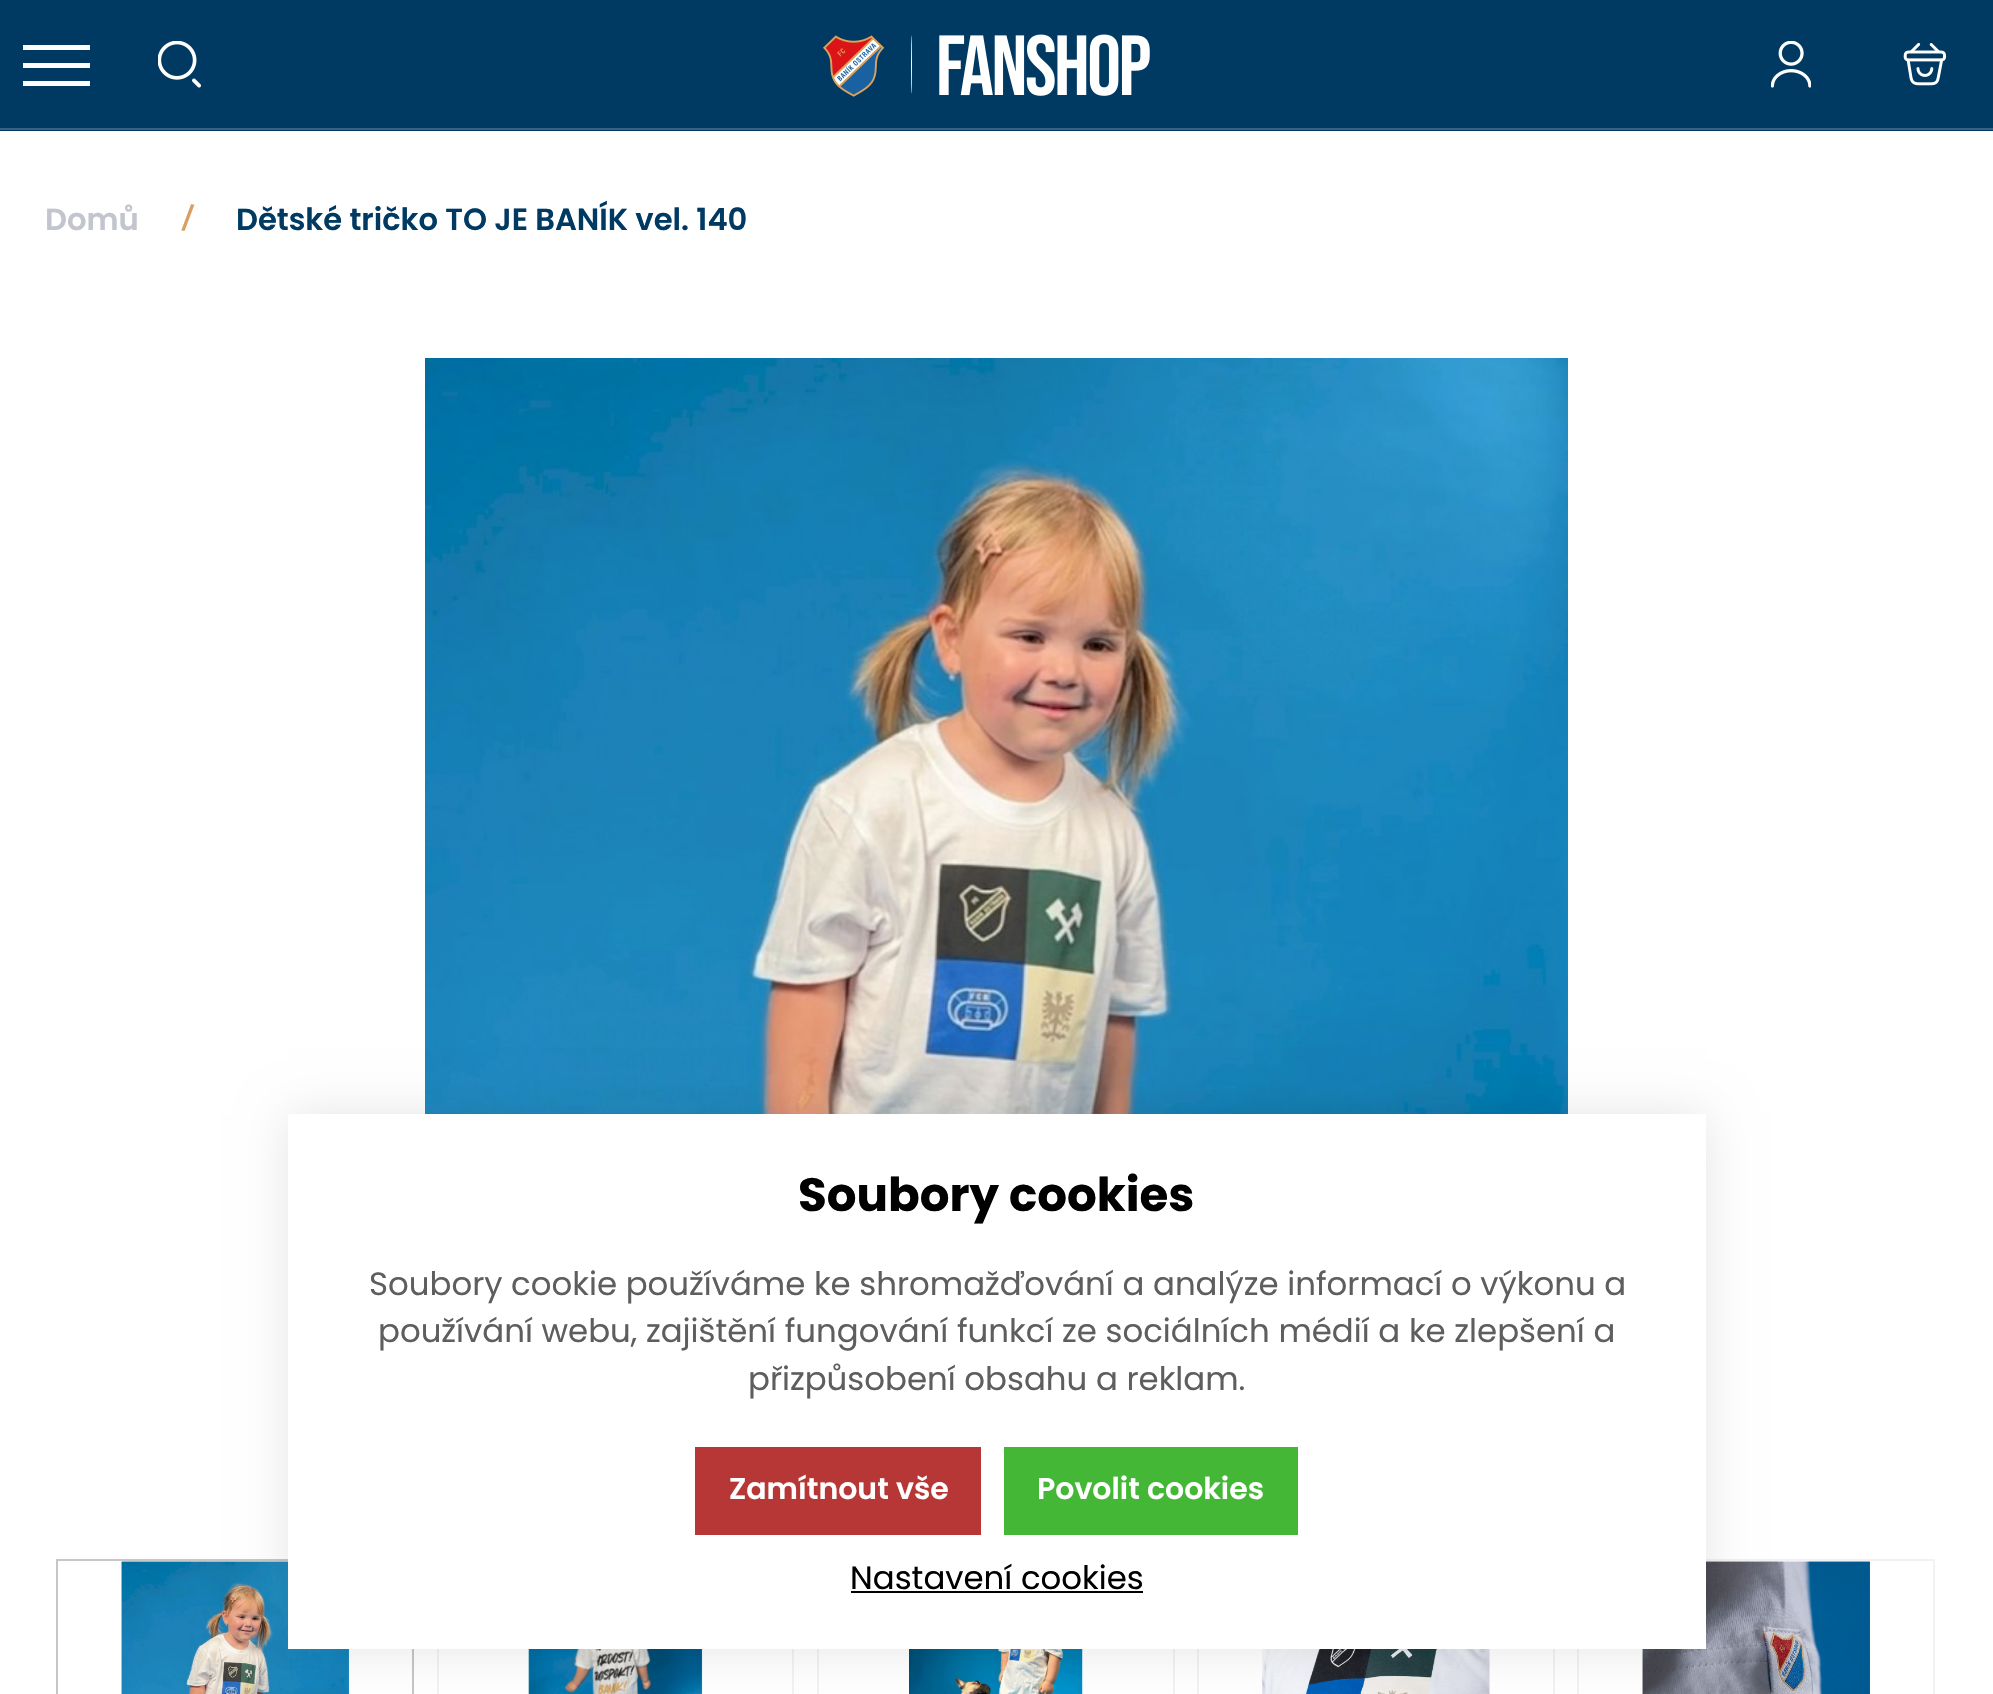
void draw(SkCanvas* canvas) {
  SkPaint paint;
  paint.setAntiAlias(true);
  auto face = [&](const char* family, int weight, float size, bool italic = false) {
    SkFontStyle style(weight, SkFontStyle::kNormal_Width,
      italic ? SkFontStyle::kItalic_Slant : SkFontStyle::kUpright_Slant);
    SkFont result(fontMgr->matchFamilyStyle(family, style), size);
    result.setSubpixel(true);
    return result;
  };
  auto paste = [&](const char* path, float x, float y, float w, float h) {
    auto image = SkImages::DeferredFromEncodedData(SkData::MakeFromFileName(path));
    canvas->drawImageRect(image, SkRect::MakeXYWH(x, y, w, h), SkSamplingOptions());
  };
  canvas->clear(0xffffffff);
  {
    const struct { float x, y, w, h; SkColor color; } items[] = {
      {0, 0, 1993, 131, 0xff003a63},
      {0, 128, 1993, 2, 0xff376484},
      {23, 81, 67, 5, 0xffffffff},
      {23, 45, 67, 5, 0xffffffff},
      {23, 63, 67, 5, 0xffffffff},
    };
    for (auto [x, y, w, h, color] : items) {
      paint.setColor(color);
      canvas->drawRect(SkRect::MakeXYWH(x, y, w, h), paint);
    }
  }
  paste("img/1.png", 158, 41, 43, 47);
  paste("img/2.png", 823, 34, 327, 63);
  paste("img/3.png", 1771, 41, 40, 47);
  paste("img/4.png", 1903, 42, 44, 44);
  paste("img/5.png", 425, 358, 1143, 756);
  paint.setStroke(true);
  paint.setStrokeWidth(2);
  paint.setColor(0xffc6c6c6);
  canvas->drawRect(SkRect::MakeXYWH(57, 1560, 356, 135), paint);
  paste("img/6.png", 121, 1561, 228, 133);
  paint.setColor(0xfff2f2f2);
  canvas->drawRect(SkRect::MakeXYWH(438, 1560, 355, 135), paint);
  paste("img/7.png", 528, 1649, 175, 45);
  canvas->drawRect(SkRect::MakeXYWH(818, 1560, 356, 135), paint);
  paste("img/8.png", 909, 1649, 174, 45);
  canvas->drawRect(SkRect::MakeXYWH(1198, 1560, 356, 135), paint);
  paste("img/9.png", 1262, 1649, 228, 45);
  canvas->drawRect(SkRect::MakeXYWH(1578, 1560, 356, 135), paint);
  paste("img/10.png", 1642, 1561, 228, 133);
  paint.setStroke(false);
  paint.setColor(0x1a000000);
  paint.setMaskFilter(SkMaskFilter::MakeBlur(kNormal_SkBlurStyle, 22.5f));
  canvas->drawRect(SkRect::MakeXYWH(288, 1114, 1418, 535), paint);
  paint.setMaskFilter(nullptr);
  {
    const struct { float x, y, w, h; SkColor color; } items[] = {
      {288, 1114, 1418, 535, 0xffffffff},
      {695, 1447, 286, 88, 0xffb73636},
      {1004, 1447, 294, 88, 0xff44b736},
      {851, 1591, 292, 2, 0xff000000},
    };
    for (auto [x, y, w, h, color] : items) {
      paint.setColor(color);
      canvas->drawRect(SkRect::MakeXYWH(x, y, w, h), paint);
    }
  }
  auto f0 = face("Poppins", 600, 30.6f);
  paint.setColor(0xffc2c5ce);
  canvas->drawString("Domů", 45, 230, f0, paint);
  auto f1 = face("Poppins", 600, 24);
  paint.setColor(0xffd99f62);
  canvas->save();
  canvas->rotate(7, 181, 226);
  canvas->drawString("/", 181, 226, f1, paint);
  canvas->restore();
  paint.setColor(0xff003a63);
  canvas->drawString("Dětské tričko TO JE BANÍK vel. 140", 236, 230, f0, paint);
  auto f2 = face("Poppins", 700, 46.75f);
  paint.setColor(0xff000000);
  canvas->drawString("Soubory cookies", 798, 1211, f2, paint);
  auto f3 = face("Poppins", 400, 32.4f);
  paint.setColor(0xff5e5e5e);
  {
    const struct { const char* s; float x, y; } items[] = {
      {"Soubory cookie používáme ke shromažďování a analýze informací o výkonu a", 369, 1295},
      {"používání webu, zajištění fungování funkcí ze sociálních médií a ke zlepšení a", 378, 1342},
      {"přizpůsobení obsahu a reklam.", 748, 1390},
    };
    for (auto [s, x, y] : items) {
      canvas->drawString(s, x, y, f3, paint);
    }
  }
  auto f4 = face("Poppins", 600, 30);
  paint.setColor(0xffffffff);
  canvas->drawString("Zamítnout vše", 729, 1499, f4, paint);
  canvas->drawString("Povolit cookies", 1037, 1499, f4, paint);
  paint.setColor(0xff000000);
  canvas->drawString("Nastavení cookies", 850, 1589, f3, paint);
}
